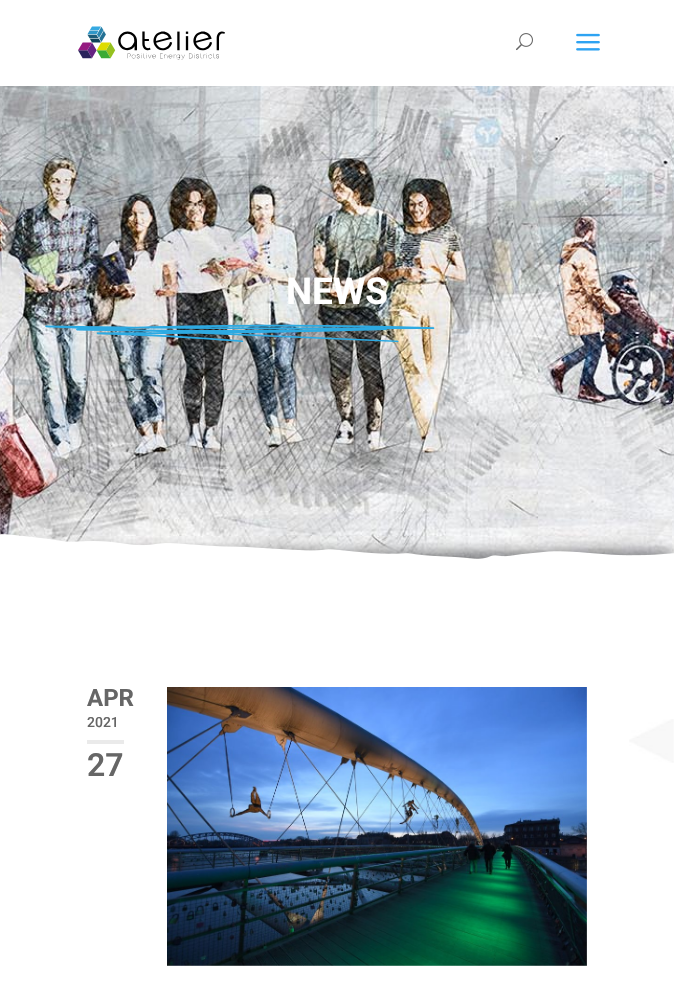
void draw(SkCanvas* canvas) {
  SkPaint paint;
  paint.setAntiAlias(true);
  auto face = [&](const char* family, int weight, float size, bool italic = false) {
    SkFontStyle style(weight, SkFontStyle::kNormal_Width,
      italic ? SkFontStyle::kItalic_Slant : SkFontStyle::kUpright_Slant);
    SkFont result(fontMgr->matchFamilyStyle(family, style), size);
    result.setSubpixel(true);
    return result;
  };
  auto paste = [&](const char* path, float x, float y, float w, float h) {
    auto image = SkImages::DeferredFromEncodedData(SkData::MakeFromFileName(path));
    canvas->drawImageRect(image, SkRect::MakeXYWH(x, y, w, h), SkSamplingOptions());
  };
  canvas->clear(0xffffffff);
  paste("img/1.png", 78, 26, 147, 34);
  paste("img/2.png", 516, 33, 17, 18);
  paste("img/3.png", 576, 33, 24, 18);
  paste("img/4.png", 0, 86, 674, 473);
  paste("img/5.png", 45, 324, 390, 19);
  paint.setColor(0x80000000);
  paint.setMaskFilter(SkMaskFilter::MakeBlur(kNormal_SkBlurStyle, 7.5f));
  canvas->drawRect(SkRect::MakeXYWH(0, 552, 674, 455), paint);
  paint.setMaskFilter(nullptr);
  paint.setColor(0xffffffff);
  canvas->drawRect(SkRect::MakeXYWH(0, 577, 674, 407), paint);
  paste("img/6.png", 0, 534, 674, 43);
  paint.setColor(0xffeaeaea);
  canvas->drawRect(SkRect::MakeXYWH(87, 740, 37, 4), paint);
  paste("img/7.png", 167, 687, 420, 279);
  paste("img/8.png", 629, 719, 45, 44);
  auto f0 = face("Roboto", 700, 37);
  paint.setColor(0xffffffff);
  canvas->drawString("NEWS", 286, 304, f0, paint);
  auto f1 = face("Roboto", 700, 24);
  paint.setColor(0xff666666);
  canvas->drawString("APR", 87, 706, f1, paint);
  auto f2 = face("Roboto", 500, 14);
  canvas->drawString("2021", 87, 727, f2, paint);
  auto f3 = face("Roboto", 600, 32);
  canvas->drawString("27", 87, 776, f3, paint);
}
